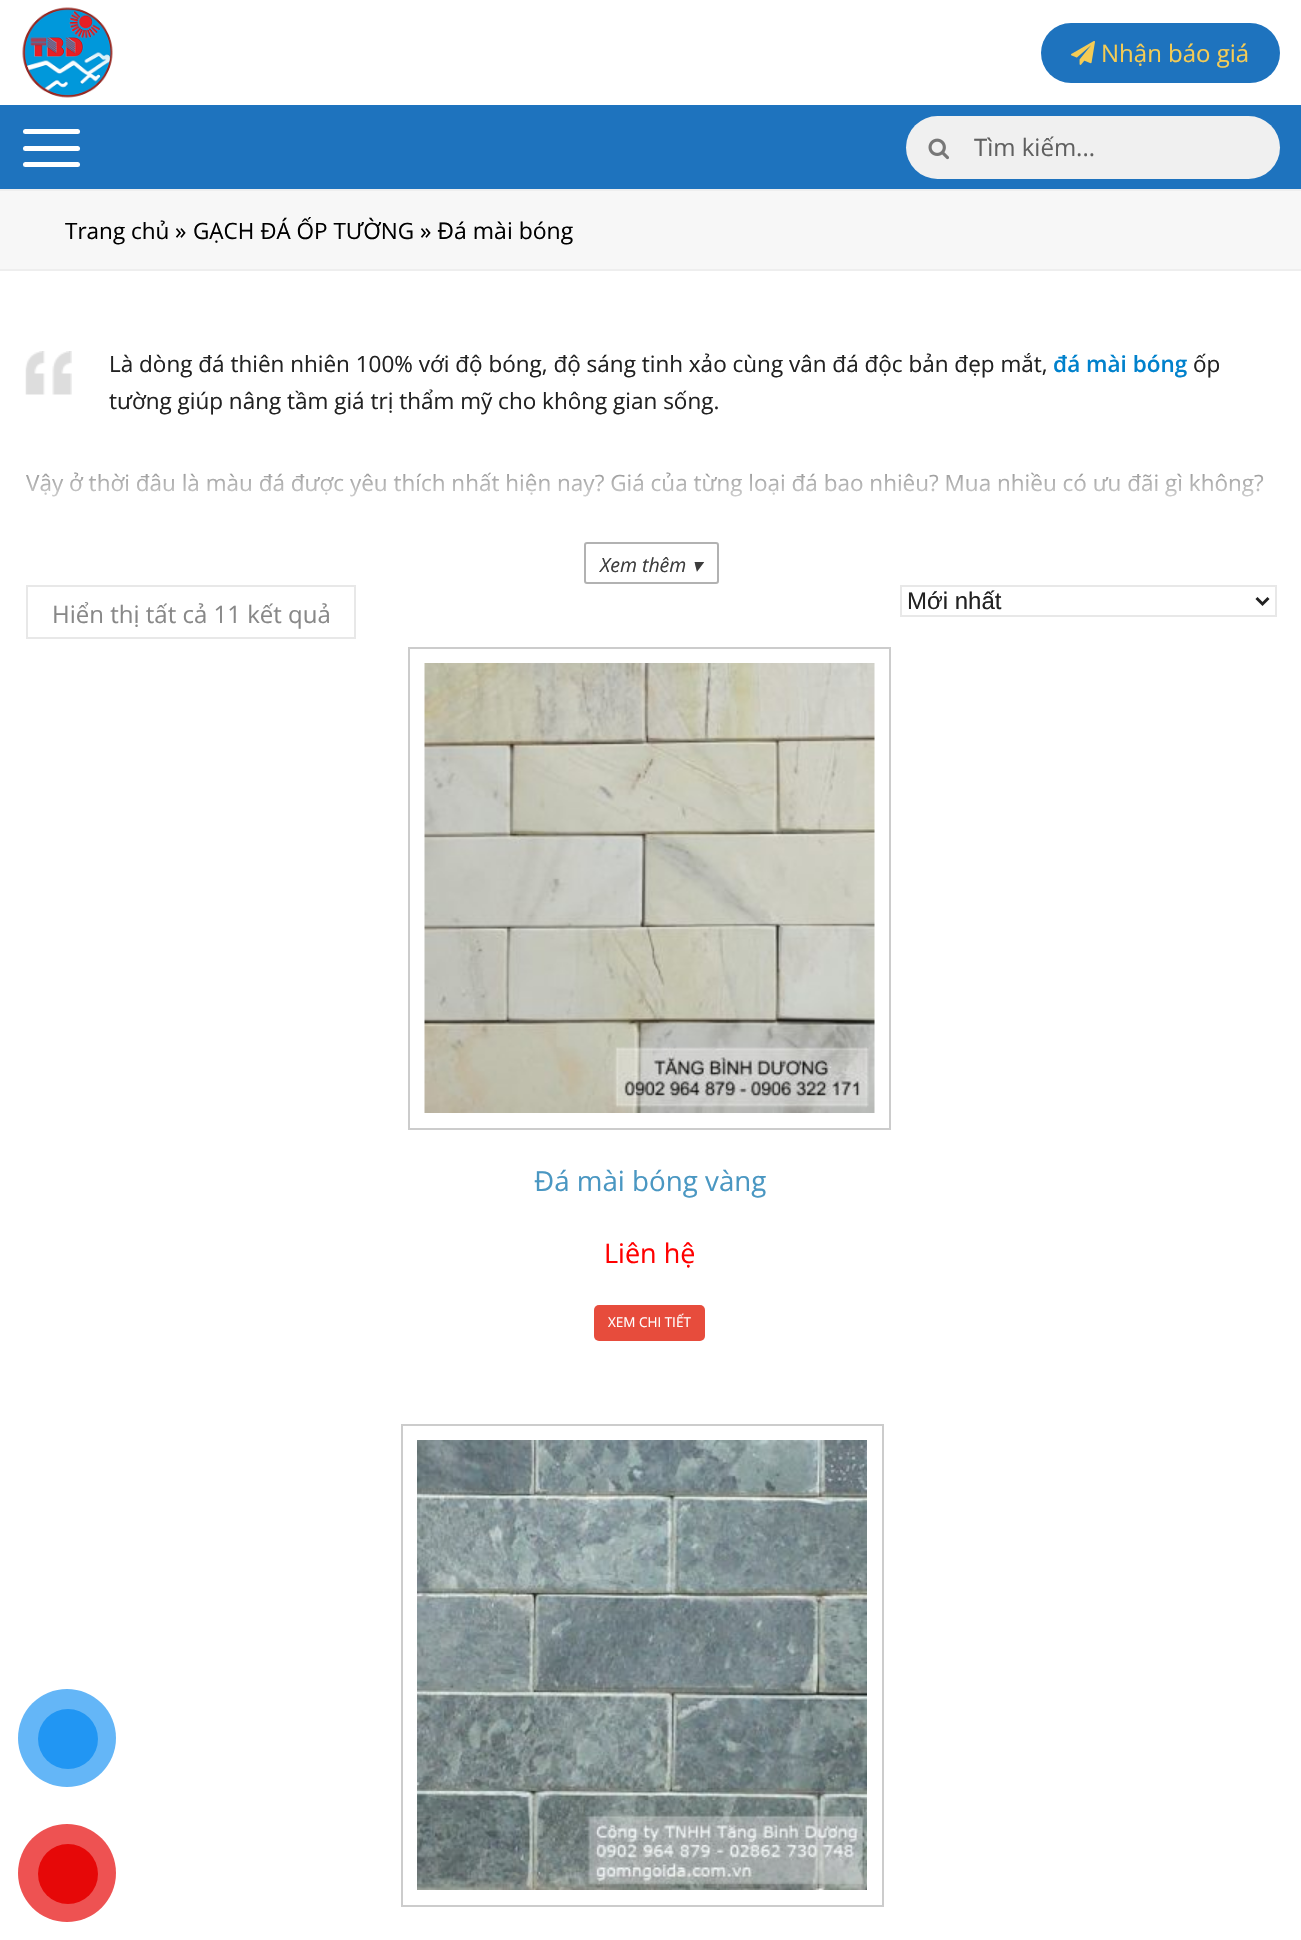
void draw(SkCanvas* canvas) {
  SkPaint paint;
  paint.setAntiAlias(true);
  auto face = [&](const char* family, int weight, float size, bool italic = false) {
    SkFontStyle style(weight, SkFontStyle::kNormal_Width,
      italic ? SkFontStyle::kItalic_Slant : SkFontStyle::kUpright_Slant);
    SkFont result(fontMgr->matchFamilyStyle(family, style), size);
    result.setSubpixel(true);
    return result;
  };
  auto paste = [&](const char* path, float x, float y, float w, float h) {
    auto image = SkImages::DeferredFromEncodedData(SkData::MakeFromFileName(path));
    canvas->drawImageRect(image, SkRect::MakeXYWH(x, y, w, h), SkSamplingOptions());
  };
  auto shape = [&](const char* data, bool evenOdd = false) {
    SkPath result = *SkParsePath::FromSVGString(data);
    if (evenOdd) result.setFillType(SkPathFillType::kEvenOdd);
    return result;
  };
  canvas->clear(0xffffffff);
  paste("img/1.png", 22, 7, 91, 91);
  paint.setColor(0xff1e73be);
  canvas->drawRoundRect(SkRect::MakeXYWH(1041, 23, 239, 60), 30, 30, paint);
  paste("img/2.png", 1071, 41, 24, 24);
  canvas->drawRect(SkRect::MakeXYWH(0, 105, 1301, 84), paint);
  paint.setColor(0xffffffff);
  canvas->drawRoundRect(SkRect::MakeXYWH(23, 129, 57, 5), 2.5f, 2.5f, paint);
  canvas->drawRoundRect(SkRect::MakeXYWH(23, 146, 57, 5), 2.5f, 2.5f, paint);
  canvas->drawRoundRect(SkRect::MakeXYWH(23, 162, 57, 5), 2.5f, 2.5f, paint);
  paint.setColor(0xfff0f0f0);
  canvas->drawRoundRect(SkRect::MakeXYWH(906, 116, 374, 63), 31.5f, 31.5f, paint);
  paste("img/3.png", 928, 138, 21, 22);
  {
    const struct { float x, y, w, h; SkColor color; } items[] = {
      {0, 191, 1301, 78, 0xfff7f7f7},
      {0, 189, 1301, 2, 0xffeeeeee},
      {0, 269, 1301, 2, 0xffeeeeee},
    };
    for (auto [x, y, w, h, color] : items) {
      paint.setColor(color);
      canvas->drawRect(SkRect::MakeXYWH(x, y, w, h), paint);
    }
  }
  paste("img/4.png", 25, 351, 47, 44);
  paint.setStroke(true);
  paint.setStrokeWidth(2);
  paint.setColor(0xffb2b2b2);
  canvas->drawRoundRect(SkRect::MakeXYWH(585, 543, 133, 40), 2, 2, paint);
  paint.setColor(0xffe8e8e8);
  canvas->drawRect(SkRect::MakeXYWH(901, 586, 375, 30), paint);
  paint.setStrokeWidth(3);
  paint.setColor(0xff222222);
  canvas->drawPath(shape("M1256.5 598L1262.5 604L1268.5 598"), paint);
  paint.setStrokeWidth(2);
  paint.setColor(0xffe8e8e8);
  canvas->drawRect(SkRect::MakeXYWH(27, 586, 328, 52), paint);
  paint.setColor(0xffcccccc);
  canvas->drawRect(SkRect::MakeXYWH(409, 648, 481, 481), paint);
  paste("img/5.png", 424, 663, 451, 450);
  paint.setStroke(false);
  paint.setColor(0xffe74c3c);
  canvas->drawRoundRect(SkRect::MakeXYWH(594, 1305, 111, 36), 5, 5, paint);
  paint.setStroke(true);
  paint.setColor(0xffcccccc);
  canvas->drawRect(SkRect::MakeXYWH(402, 1425, 481, 481), paint);
  paste("img/6.png", 417, 1440, 450, 450);
  paint.setStroke(false);
  paint.setColor(0xff64b6f7);
  canvas->drawCircle(67, 1738, 49, paint);
  paint.setColor(0xff2196f3);
  canvas->drawCircle(68, 1739, 30, paint);
  paint.setColor(0xffee5252);
  canvas->drawCircle(67, 1873, 49, paint);
  paint.setColor(0xffe60808);
  canvas->drawCircle(68, 1874, 30, paint);
  auto f0 = face("Open Sans", 400, 24);
  paint.setColor(0xfff5cc55);
  canvas->drawString("Nhận báo giá", 1101, 62, f0, paint);
  paint.setColor(0xff606060);
  canvas->drawString("Tìm kiếm...", 974, 156, f0, paint);
  auto f1 = face("Open Sans", 400, 22.5f);
  paint.setColor(0xff000000);
  canvas->drawString("Trang chủ", 65, 239, f1, paint);
  auto f2 = face("Open Sans", 400, 23);
  canvas->drawString("»", 175, 239, f2, paint);
  canvas->drawString("GẠCH ĐÁ ỐP TƯỜNG", 193, 239, f1, paint);
  canvas->drawString("» Đá mài bóng", 420, 239, f2, paint);
  paint.setColor(0xff222222);
  canvas->drawString("Là dòng đá thiên nhiên 100% với độ bóng, độ sáng tinh xảo cùng vân đá độc bản đẹp mắt,", 109, 372, f1, paint);
  auto f3 = face("Open Sans", 600, 22.5f);
  paint.setColor(0xff0081cc);
  canvas->drawString("đá mài bóng", 1053, 372, f3, paint);
  paint.setColor(0xff222222);
  {
    const struct { const char* s; float x, y; } items[] = {
      {"ốp", 1193, 372},
      {"tường giúp nâng tầm giá trị thẩm mỹ cho không gian sống.", 109, 409},
      {"Vậy ở thời đâu là màu đá được yêu thích nhất hiện nay? Giá của từng loại đá bao nhiêu? Mua nhiều có ưu đãi gì không?", 26, 491},
    };
    for (auto [s, x, y] : items) {
      canvas->drawString(s, x, y, f1, paint);
    }
  }
  {
    const SkColor colors[] = {0x00ffffff, 0xe8ffffff, 0xffffffff};
    const float stops[] = {0, 0.5f, 0.55f};
    const SkPoint ends[] = {{651, 414}, {651, 609}};
    paint.setShader(SkGradientShader::MakeLinear(ends, colors, stops, 3, SkTileMode::kClamp));
    paint.setAlpha(255);
  }
  canvas->drawRect(SkRect::MakeXYWH(26, 472, 1238, 25), paint);
  auto f4 = face("Open Sans", 400, 19.5f, true);
  paint.setShader(nullptr);
  paint.setColor(0xff3d3d3d);
  canvas->drawString("Xem thêm", 600, 572, f4, paint);
  auto f5 = face("DejaVu Sans", 400, 19.5f, true);
  canvas->drawString("▾", 692, 572, f5, paint);
  auto f6 = face("Liberation Sans", 400, 24);
  paint.setColor(0xff222222);
  canvas->drawString("Mới nhất", 907, 609, f6, paint);
  paint.setColor(0xff888888);
  canvas->drawString("Hiển thị tất cả 11 kết quả", 52, 623, f0, paint);
  auto f7 = face("Open Sans", 400, 27.75f);
  paint.setColor(0xff4a97c2);
  canvas->drawString("Đá mài bóng vàng", 534, 1191, f7, paint);
  auto f8 = face("Open Sans", 400, 27);
  paint.setColor(0xffff0000);
  canvas->drawString("Liên hệ", 604, 1263, f8, paint);
  auto f9 = face("Open Sans", 400, 13.5f);
  paint.setColor(0xffffffff);
  canvas->drawString("XEM CHI TIẾT", 608, 1327, f9, paint);
}
